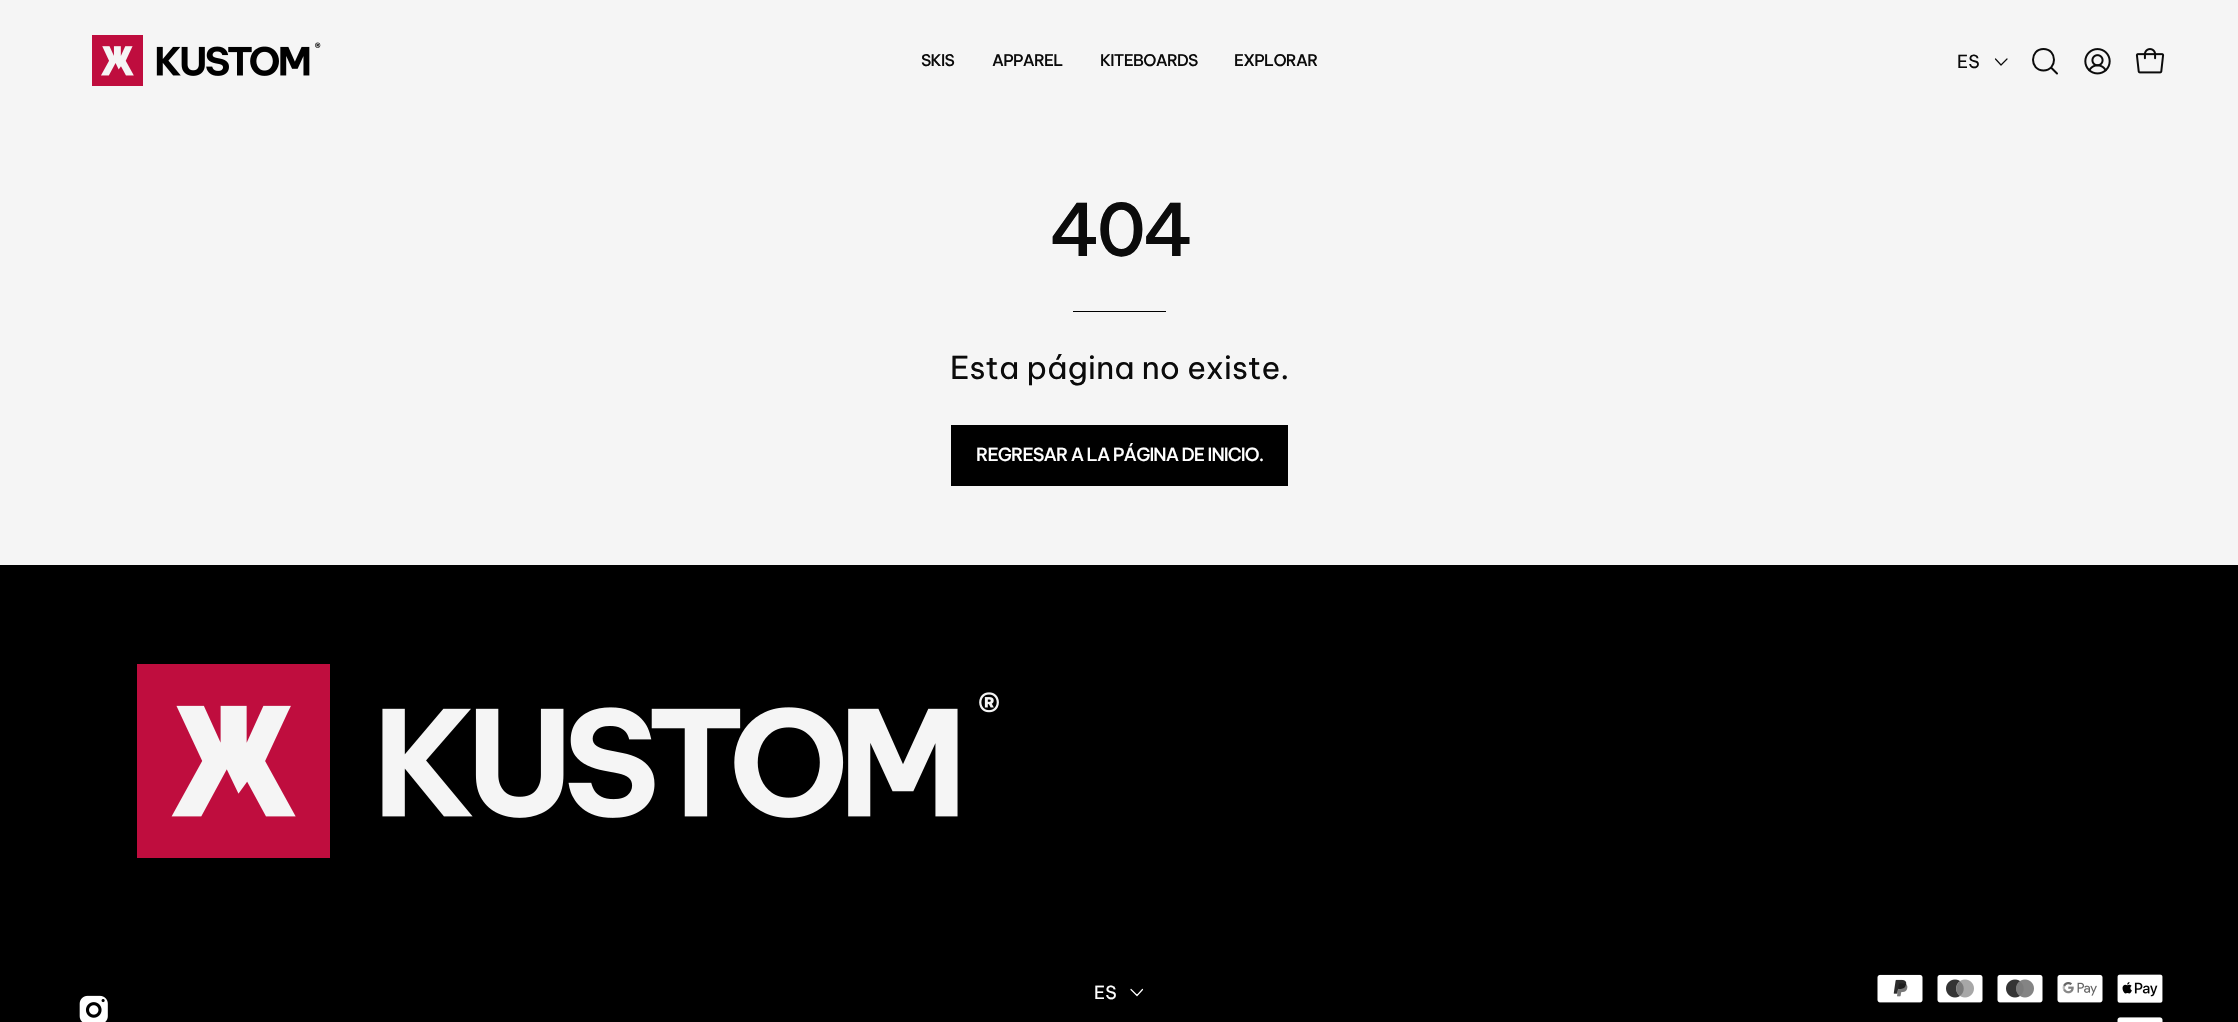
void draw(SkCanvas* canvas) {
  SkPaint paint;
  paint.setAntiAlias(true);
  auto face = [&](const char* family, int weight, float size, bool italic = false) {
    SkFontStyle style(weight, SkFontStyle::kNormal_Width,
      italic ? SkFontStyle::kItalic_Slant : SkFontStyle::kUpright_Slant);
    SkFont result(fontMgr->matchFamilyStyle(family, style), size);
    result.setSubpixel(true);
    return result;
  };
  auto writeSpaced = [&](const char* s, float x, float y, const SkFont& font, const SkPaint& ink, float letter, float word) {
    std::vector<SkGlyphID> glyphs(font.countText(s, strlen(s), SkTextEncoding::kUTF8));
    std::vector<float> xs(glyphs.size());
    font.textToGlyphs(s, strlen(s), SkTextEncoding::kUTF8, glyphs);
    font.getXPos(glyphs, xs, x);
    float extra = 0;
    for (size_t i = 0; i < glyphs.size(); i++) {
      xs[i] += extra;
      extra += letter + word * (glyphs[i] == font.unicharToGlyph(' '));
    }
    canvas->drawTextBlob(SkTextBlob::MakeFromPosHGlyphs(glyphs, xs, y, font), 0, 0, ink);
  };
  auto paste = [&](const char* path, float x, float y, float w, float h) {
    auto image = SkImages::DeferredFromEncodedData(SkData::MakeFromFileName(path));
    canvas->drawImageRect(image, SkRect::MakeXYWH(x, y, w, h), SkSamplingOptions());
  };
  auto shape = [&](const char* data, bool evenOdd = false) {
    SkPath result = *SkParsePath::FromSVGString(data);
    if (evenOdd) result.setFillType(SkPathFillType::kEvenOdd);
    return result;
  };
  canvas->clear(0xfff5f5f5);
  paste("img/1.png", 92, 35, 229, 51);
  paint.setStroke(true);
  paint.setStrokeWidth(1.2f);
  paint.setStrokeCap(SkPaint::kRound_Cap);
  paint.setStrokeJoin(SkPaint::kRound_Join);
  paint.setColor(0xff0b0b0b);
  canvas->drawPath(shape("M2007 59L2001 65L1995.5 59"), paint);
  paint.setStrokeWidth(2);
  canvas->drawPath(shape("M2043.5 70.5C2057.5 70.5 2057.5 49 2043.5 49C2029.5 49 2029.5 70.5 2043.5 70.5ZM2051 67.5L2057 73.5"), paint);
  paste("img/2.png", 2084, 48, 27, 27);
  paste("img/3.png", 2135, 48, 30, 26);
  paint.setStroke(false);
  {
    const struct { float x, y, w, h; SkColor color; } items[] = {
      {1073, 311, 93, 1, 0xff000000},
      {951, 425, 337, 61, 0xff000000},
      {0, 565, 2238, 457, 0xff000000},
    };
    for (auto [x, y, w, h, color] : items) {
      paint.setColor(color);
      canvas->drawRect(SkRect::MakeXYWH(x, y, w, h), paint);
    }
  }
  paste("img/4.png", 137, 664, 862, 194);
  paint.setStroke(true);
  paint.setStrokeWidth(1.2f);
  paint.setColor(0xffffffff);
  canvas->drawPath(shape("M1142.5 989.5L1137 995.5L1131 989.5"), paint);
  paste("img/5.png", 1877, 974, 46, 29);
  paste("img/6.png", 1937, 974, 46, 29);
  paste("img/7.png", 1997, 974, 46, 29);
  paste("img/8.png", 2057, 974, 46, 29);
  paste("img/9.png", 2117, 974, 46, 29);
  paste("img/10.png", 2117, 1017, 46, 5);
  paste("img/11.png", 79, 995, 29, 27);
  auto f0 = face("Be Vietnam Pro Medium", 500, 16);
  paint.setStroke(false);
  paint.setColor(0xff0b0b0b);
  {
    const struct { const char* s; float x, y; } items[] = {
      {"SKIS", 921, 66},
      {"APPAREL", 992, 66},
      {"KITEBOARDS", 1100, 66},
      {"EXPLORAR", 1234, 66},
    };
    for (auto [s, x, y] : items) {
      writeSpaced(s, x, y, f0, paint, -0.75f, 0);
    }
  }
  auto f1 = face("Be Vietnam Pro", 400, 18);
  canvas->drawString("ES", 1957, 68, f1, paint);
  auto f2 = face("Be Vietnam Pro Medium", 500, 72);
  writeSpaced("404", 1049, 256, f2, paint, -3.5f, 0);
  auto f3 = face("Be Vietnam Pro", 400, 31.5f);
  canvas->drawString("Esta página no existe.", 950, 379, f3, paint);
  auto f4 = face("Be Vietnam Pro Medium", 500, 18);
  paint.setColor(0xffffffff);
  writeSpaced("REGRESAR A LA PÁGINA DE INICIO.", 976, 461, f4, paint, -0.9f, 0);
  canvas->drawString("ES", 1094, 999, f1, paint);
}
